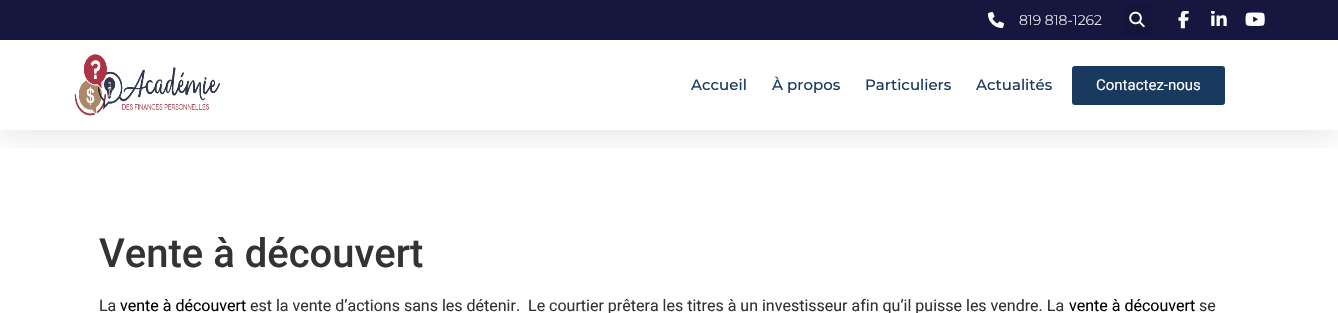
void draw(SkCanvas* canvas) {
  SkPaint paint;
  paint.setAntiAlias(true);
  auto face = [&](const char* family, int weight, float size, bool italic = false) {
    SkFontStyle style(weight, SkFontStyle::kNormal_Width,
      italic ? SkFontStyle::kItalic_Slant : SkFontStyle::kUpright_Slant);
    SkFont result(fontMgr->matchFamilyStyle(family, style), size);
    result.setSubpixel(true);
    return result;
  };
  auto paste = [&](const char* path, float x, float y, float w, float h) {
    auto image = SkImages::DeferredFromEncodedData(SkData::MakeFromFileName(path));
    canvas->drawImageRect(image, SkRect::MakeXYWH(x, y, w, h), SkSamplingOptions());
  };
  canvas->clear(0xffffffff);
  canvas->save();
  canvas->clipRect(SkRect::MakeXYWH(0, 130, 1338, 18));
  paint.setColor(0x1a000000);
  paint.setMaskFilter(SkMaskFilter::MakeBlur(kNormal_SkBlurStyle, 15));
  canvas->drawRect(SkRect::MakeXYWH(0, 5, 1338, 130), paint);
  paint.setMaskFilter(nullptr);
  canvas->restore();
  paint.setColor(0xff16163f);
  canvas->drawRect(SkRect::MakeXYWH(0, 0, 1338, 40), paint);
  paste("img/1.png", 988, 12, 16, 16);
  paint.setColor(0xff15153c);
  canvas->drawRoundRect(SkRect::MakeXYWH(1122, 5, 31, 31), 3, 3, paint);
  paste("img/2.png", 1129, 11, 16, 17);
  paste("img/3.png", 1178, 11, 11, 18);
  paste("img/4.png", 1211, 11, 16, 15);
  paste("img/5.png", 1245, 12, 20, 14);
  paste("img/6.png", 74, 54, 146, 62);
  paint.setColor(0xff1a395f);
  canvas->drawRoundRect(SkRect::MakeXYWH(1072, 66, 153, 39), 3, 3, paint);
  auto f0 = face("Montserrat", 300, 14);
  paint.setColor(0xffffffff);
  canvas->drawString("819 818-1262", 1019, 25, f0, paint);
  auto f1 = face("Montserrat", 500, 15);
  paint.setColor(0xff1a395f);
  {
    const struct { const char* s; float x, y; } items[] = {
      {"Accueil", 691, 90},
      {"À propos", 772, 90},
      {"Particuliers", 865, 90},
      {"Actualités", 976, 90},
    };
    for (auto [s, x, y] : items) {
      canvas->drawString(s, x, y, f1, paint);
    }
  }
  auto f2 = face("Roboto", 400, 15);
  paint.setColor(0xffffffff);
  canvas->drawString("Contactez-nous", 1096, 90, f2, paint);
  auto f3 = face("Roboto", 500, 40);
  paint.setColor(0xff333333);
  canvas->drawString("Vente à découvert", 99, 267, f3, paint);
  auto f4 = face("Roboto", 400, 16);
  canvas->drawString("La", 99, 311, f4, paint);
  paint.setColor(0xff000000);
  canvas->drawString("vente à découvert", 120, 311, f4, paint);
  paint.setColor(0xff333333);
  canvas->drawString("est la vente d’actions sans les détenir.  Le courtier prêtera les titres à un investisseur afin qu’il puisse les vendre. La", 250, 311, f4, paint);
  paint.setColor(0xff000000);
  canvas->drawString("vente à découvert", 1069, 311, f4, paint);
  paint.setColor(0xff333333);
  canvas->drawString("se", 1199, 311, f4, paint);
}
